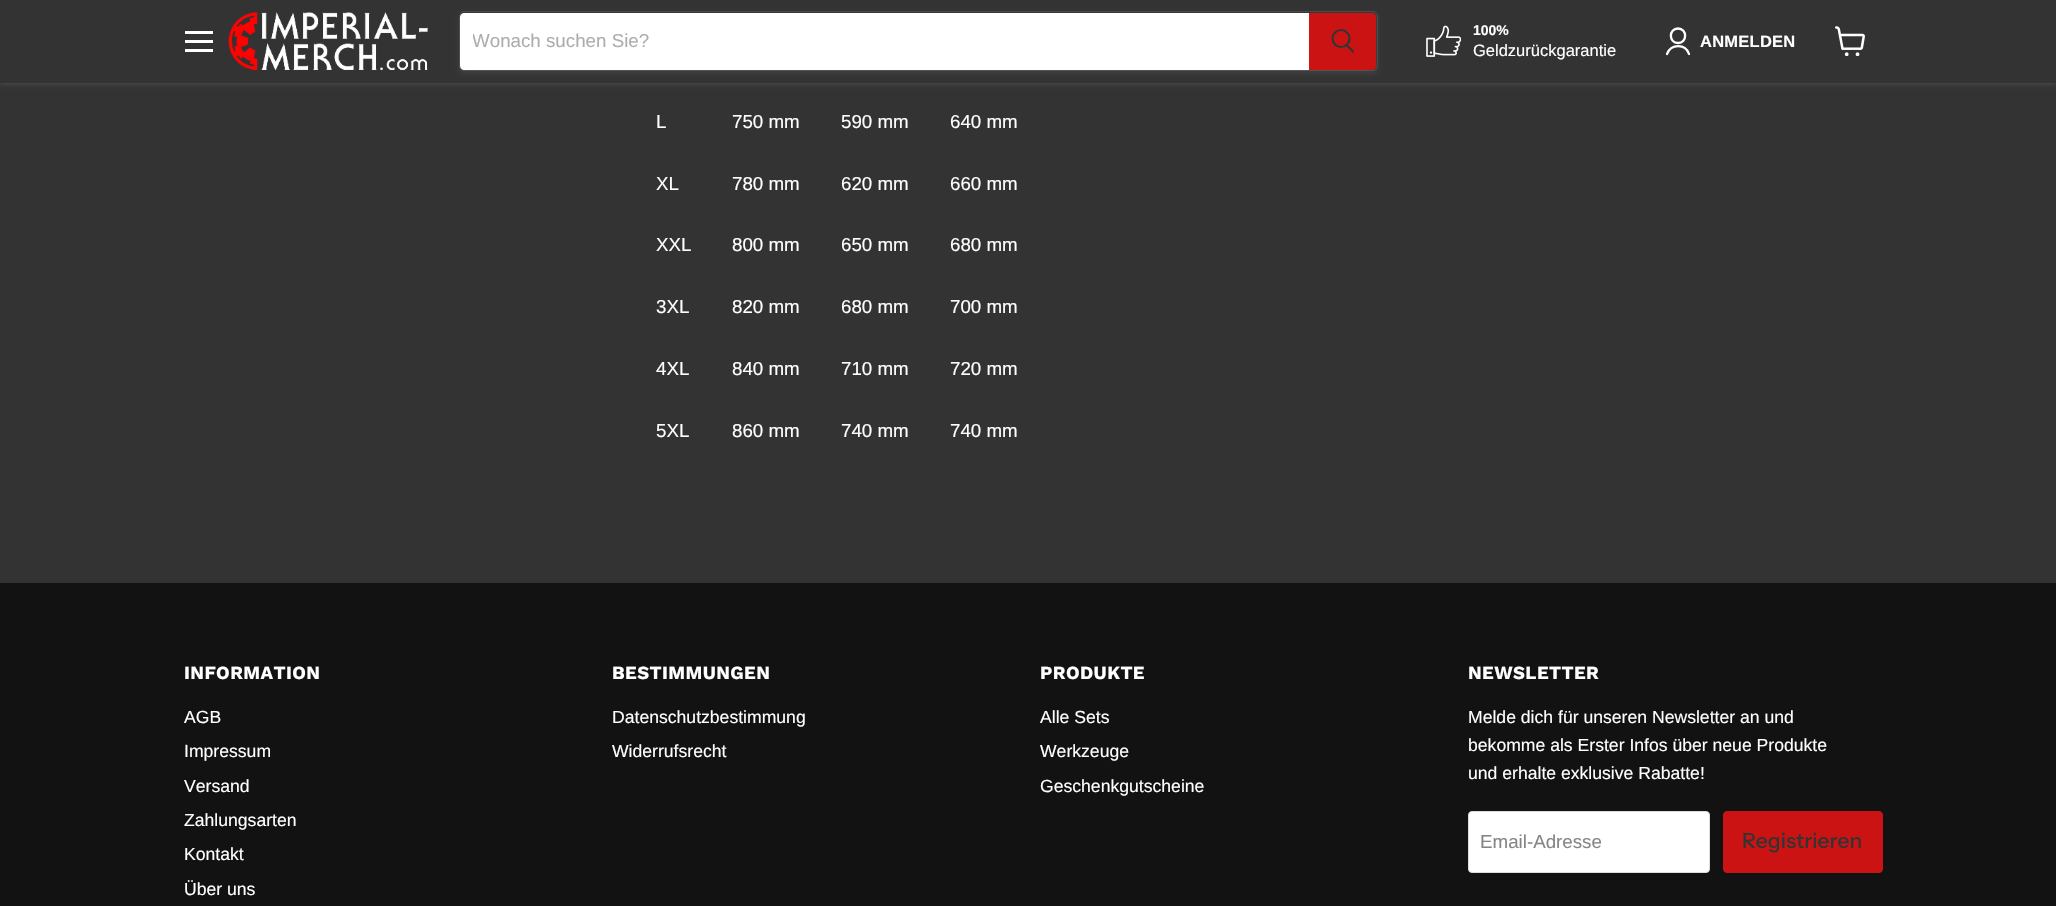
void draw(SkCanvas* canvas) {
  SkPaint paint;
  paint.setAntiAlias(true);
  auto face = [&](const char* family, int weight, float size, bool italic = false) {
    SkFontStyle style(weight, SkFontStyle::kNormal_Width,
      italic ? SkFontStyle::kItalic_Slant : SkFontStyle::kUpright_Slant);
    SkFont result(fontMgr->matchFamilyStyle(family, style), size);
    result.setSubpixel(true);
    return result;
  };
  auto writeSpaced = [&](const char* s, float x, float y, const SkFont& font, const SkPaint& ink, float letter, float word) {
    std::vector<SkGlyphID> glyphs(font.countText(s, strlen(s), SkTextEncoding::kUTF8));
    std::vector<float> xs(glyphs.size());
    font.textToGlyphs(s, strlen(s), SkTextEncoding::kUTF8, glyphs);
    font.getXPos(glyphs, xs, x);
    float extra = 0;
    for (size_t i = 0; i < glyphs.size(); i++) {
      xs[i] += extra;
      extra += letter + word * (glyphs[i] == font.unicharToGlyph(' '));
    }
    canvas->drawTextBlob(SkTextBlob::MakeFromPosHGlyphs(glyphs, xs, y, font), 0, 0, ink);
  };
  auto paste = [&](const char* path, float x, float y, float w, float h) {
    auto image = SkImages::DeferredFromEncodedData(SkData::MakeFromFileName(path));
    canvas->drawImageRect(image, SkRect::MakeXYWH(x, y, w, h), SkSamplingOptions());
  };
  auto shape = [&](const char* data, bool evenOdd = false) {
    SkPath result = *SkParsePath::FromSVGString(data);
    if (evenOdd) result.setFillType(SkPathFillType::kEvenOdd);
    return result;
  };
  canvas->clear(0xff333333);
  paint.setColor(0x40999999);
  paint.setMaskFilter(SkMaskFilter::MakeBlur(kNormal_SkBlurStyle, 2.5f));
  canvas->drawRect(SkRect::MakeXYWH(0, 1, 2056, 83), paint);
  paint.setMaskFilter(nullptr);
  {
    const struct { float x, y, w, h; SkColor color; } items[] = {
      {0, 0, 2056, 83, 0xff333333},
      {185, 31, 28, 3, 0xffffffff},
      {185, 40, 28, 3, 0xffffffff},
      {185, 49, 28, 3, 0xffffffff},
    };
    for (auto [x, y, w, h, color] : items) {
      paint.setColor(color);
      canvas->drawRect(SkRect::MakeXYWH(x, y, w, h), paint);
    }
  }
  paste("img/1.png", 228, 12, 200, 58);
  paint.setColor(0x1c999999);
  paint.setMaskFilter(SkMaskFilter::MakeBlur(kNormal_SkBlurStyle, 2));
  canvas->drawRoundRect(SkRect::MakeXYWH(459, 14, 919, 60), 5, 5, paint);
  paint.setMaskFilter(nullptr);
  paint.setStroke(true);
  paint.setStrokeWidth(1);
  paint.setColor(0x33999999);
  canvas->drawRoundRect(SkRect::MakeXYWH(459.5f, 11.5f, 918, 59), 4.5f, 4.5f, paint);
  paint.setStroke(false);
  paint.setColor(0xffffffff);
  canvas->drawPath(shape("M464 13H1309V70H464C462 70 460 68 460 66V17C460 15 462 13 464 13Z"), paint);
  paint.setColor(0xffcc1313);
  canvas->drawPath(shape("M1309.5 13.5H1372C1374 13.5 1375.5 15 1375.5 17V66C1375.5 68 1374 69.5 1372 69.5H1309.5Z"), paint);
  paint.setStroke(true);
  canvas->drawPath(shape("M1309.5 13.5H1372C1374 13.5 1375.5 15 1375.5 17V66C1375.5 68 1374 69.5 1372 69.5H1309.5Z"), paint);
  paint.setStrokeWidth(2.2f);
  paint.setStrokeCap(SkPaint::kRound_Cap);
  paint.setColor(0xff333333);
  canvas->drawPath(shape("M1353 51.5L1347 45.5"), paint);
  paint.setStrokeCap(SkPaint::kButt_Cap);
  canvas->drawCircle(1341, 38.5f, 8.5f, paint);
  paste("img/2.png", 1426, 25, 35, 32);
  paint.setStrokeWidth(2.3f);
  paint.setStrokeCap(SkPaint::kRound_Cap);
  paint.setStrokeJoin(SkPaint::kRound_Join);
  paint.setColor(0xffffffff);
  canvas->drawPath(shape("M1678 43C1687.5 43 1687.5 28.5 1678 28.5C1668.5 28.5 1668.5 43 1678 43ZM1689 54C1685.5 43.5 1671 43.5 1667 54"), paint);
  paste("img/3.png", 1835, 26, 30, 30);
  paint.setStroke(false);
  paint.setColor(0xff121212);
  canvas->drawRect(SkRect::MakeXYWH(0, 583, 2056, 323), paint);
  paint.setColor(0xffffffff);
  canvas->drawRoundRect(SkRect::MakeXYWH(1468.5f, 811.5f, 241, 61), 3.5f, 3.5f, paint);
  paint.setStroke(true);
  paint.setStrokeWidth(1);
  paint.setStrokeCap(SkPaint::kButt_Cap);
  paint.setStrokeJoin(SkPaint::kMiter_Join);
  paint.setColor(0xffdddddd);
  canvas->drawRoundRect(SkRect::MakeXYWH(1468.5f, 811.5f, 241, 61), 3.5f, 3.5f, paint);
  paint.setStroke(false);
  paint.setColor(0xffcc1313);
  canvas->drawRoundRect(SkRect::MakeXYWH(1723.5f, 811.5f, 159, 61), 3.5f, 3.5f, paint);
  paint.setStroke(true);
  canvas->drawRoundRect(SkRect::MakeXYWH(1723.5f, 811.5f, 159, 61), 3.5f, 3.5f, paint);
  canvas->save();
  canvas->clipRect(SkRect::MakeXYWH(473, 30, 823, 21));
  auto f0 = face("Liberation Sans", 400, 18.75f);
  paint.setStroke(false);
  paint.setColor(0xffadadad);
  canvas->drawString("Wonach suchen Sie?", 472, 47, f0, paint);
  canvas->restore();
  auto f1 = face("Liberation Sans", 700, 14);
  paint.setColor(0xffffffff);
  canvas->drawString("100%", 1473, 35, f1, paint);
  auto f2 = face("Liberation Sans", 400, 16.5f);
  canvas->drawString("Geldzurückgarantie", 1473, 56, f2, paint);
  auto f3 = face("Liberation Sans", 700, 16.5f);
  writeSpaced("ANMELDEN", 1700, 47, f3, paint, 0.25f, 0);
  {
    const struct { const char* s; float x, y; } items[] = {
      {"L", 656, 128},
      {"750 mm", 732, 128},
      {"590 mm", 841, 128},
      {"640 mm", 950, 128},
      {"XL", 656, 190},
      {"780 mm", 732, 190},
      {"620 mm", 841, 190},
      {"660 mm", 950, 190},
      {"XXL", 656, 251},
      {"800 mm", 732, 251},
      {"650 mm", 841, 251},
      {"680 mm", 950, 251},
      {"3XL", 656, 313},
      {"820 mm", 732, 313},
      {"680 mm", 841, 313},
      {"700 mm", 950, 313},
      {"4XL", 656, 375},
      {"840 mm", 732, 375},
      {"710 mm", 841, 375},
      {"720 mm", 950, 375},
      {"5XL", 656, 437},
      {"860 mm", 732, 437},
      {"740 mm", 841, 437},
      {"740 mm", 950, 437},
    };
    for (auto [s, x, y] : items) {
      canvas->drawString(s, x, y, f0, paint);
    }
  }
  auto f4 = face("Work Sans", 700, 18.5f);
  writeSpaced("INFORMATION", 184, 679, f4, paint, 0.4f, 0);
  auto f5 = face("Liberation Sans", 400, 17.6f);
  {
    const struct { const char* s; float x, y; } items[] = {
      {"AGB", 184, 723},
      {"Impressum", 184, 757},
      {"Versand", 184, 792},
      {"Zahlungsarten", 184, 826},
      {"Kontakt", 184, 860},
      {"Über uns", 184, 895},
    };
    for (auto [s, x, y] : items) {
      canvas->drawString(s, x, y, f5, paint);
    }
  }
  writeSpaced("BESTIMMUNGEN", 612, 679, f4, paint, 0.4f, 0);
  canvas->drawString("Datenschutzbestimmung", 612, 723, f5, paint);
  canvas->drawString("Widerrufsrecht", 612, 757, f5, paint);
  writeSpaced("PRODUKTE", 1040, 679, f4, paint, 0.4f, 0);
  {
    const struct { const char* s; float x, y; } items[] = {
      {"Alle Sets", 1040, 723},
      {"Werkzeuge", 1040, 757},
      {"Geschenkgutscheine", 1040, 792},
    };
    for (auto [s, x, y] : items) {
      canvas->drawString(s, x, y, f5, paint);
    }
  }
  writeSpaced("NEWSLETTER", 1468, 679, f4, paint, 0.4f, 0);
  {
    const struct { const char* s; float x, y; } items[] = {
      {"Melde dich für unseren Newsletter an und", 1468, 723},
      {"bekomme als Erster Infos über neue Produkte", 1468, 751},
      {"und erhalte exklusive Rabatte!", 1468, 779},
    };
    for (auto [s, x, y] : items) {
      canvas->drawString(s, x, y, f5, paint);
    }
  }
  paint.setColor(0xff858585);
  canvas->drawString("Email-Adresse", 1480, 848, f0, paint);
  auto f6 = face("Instrument Sans", 500, 21);
  paint.setColor(0xff333333);
  canvas->drawString("Registrieren", 1742, 848, f6, paint);
}
